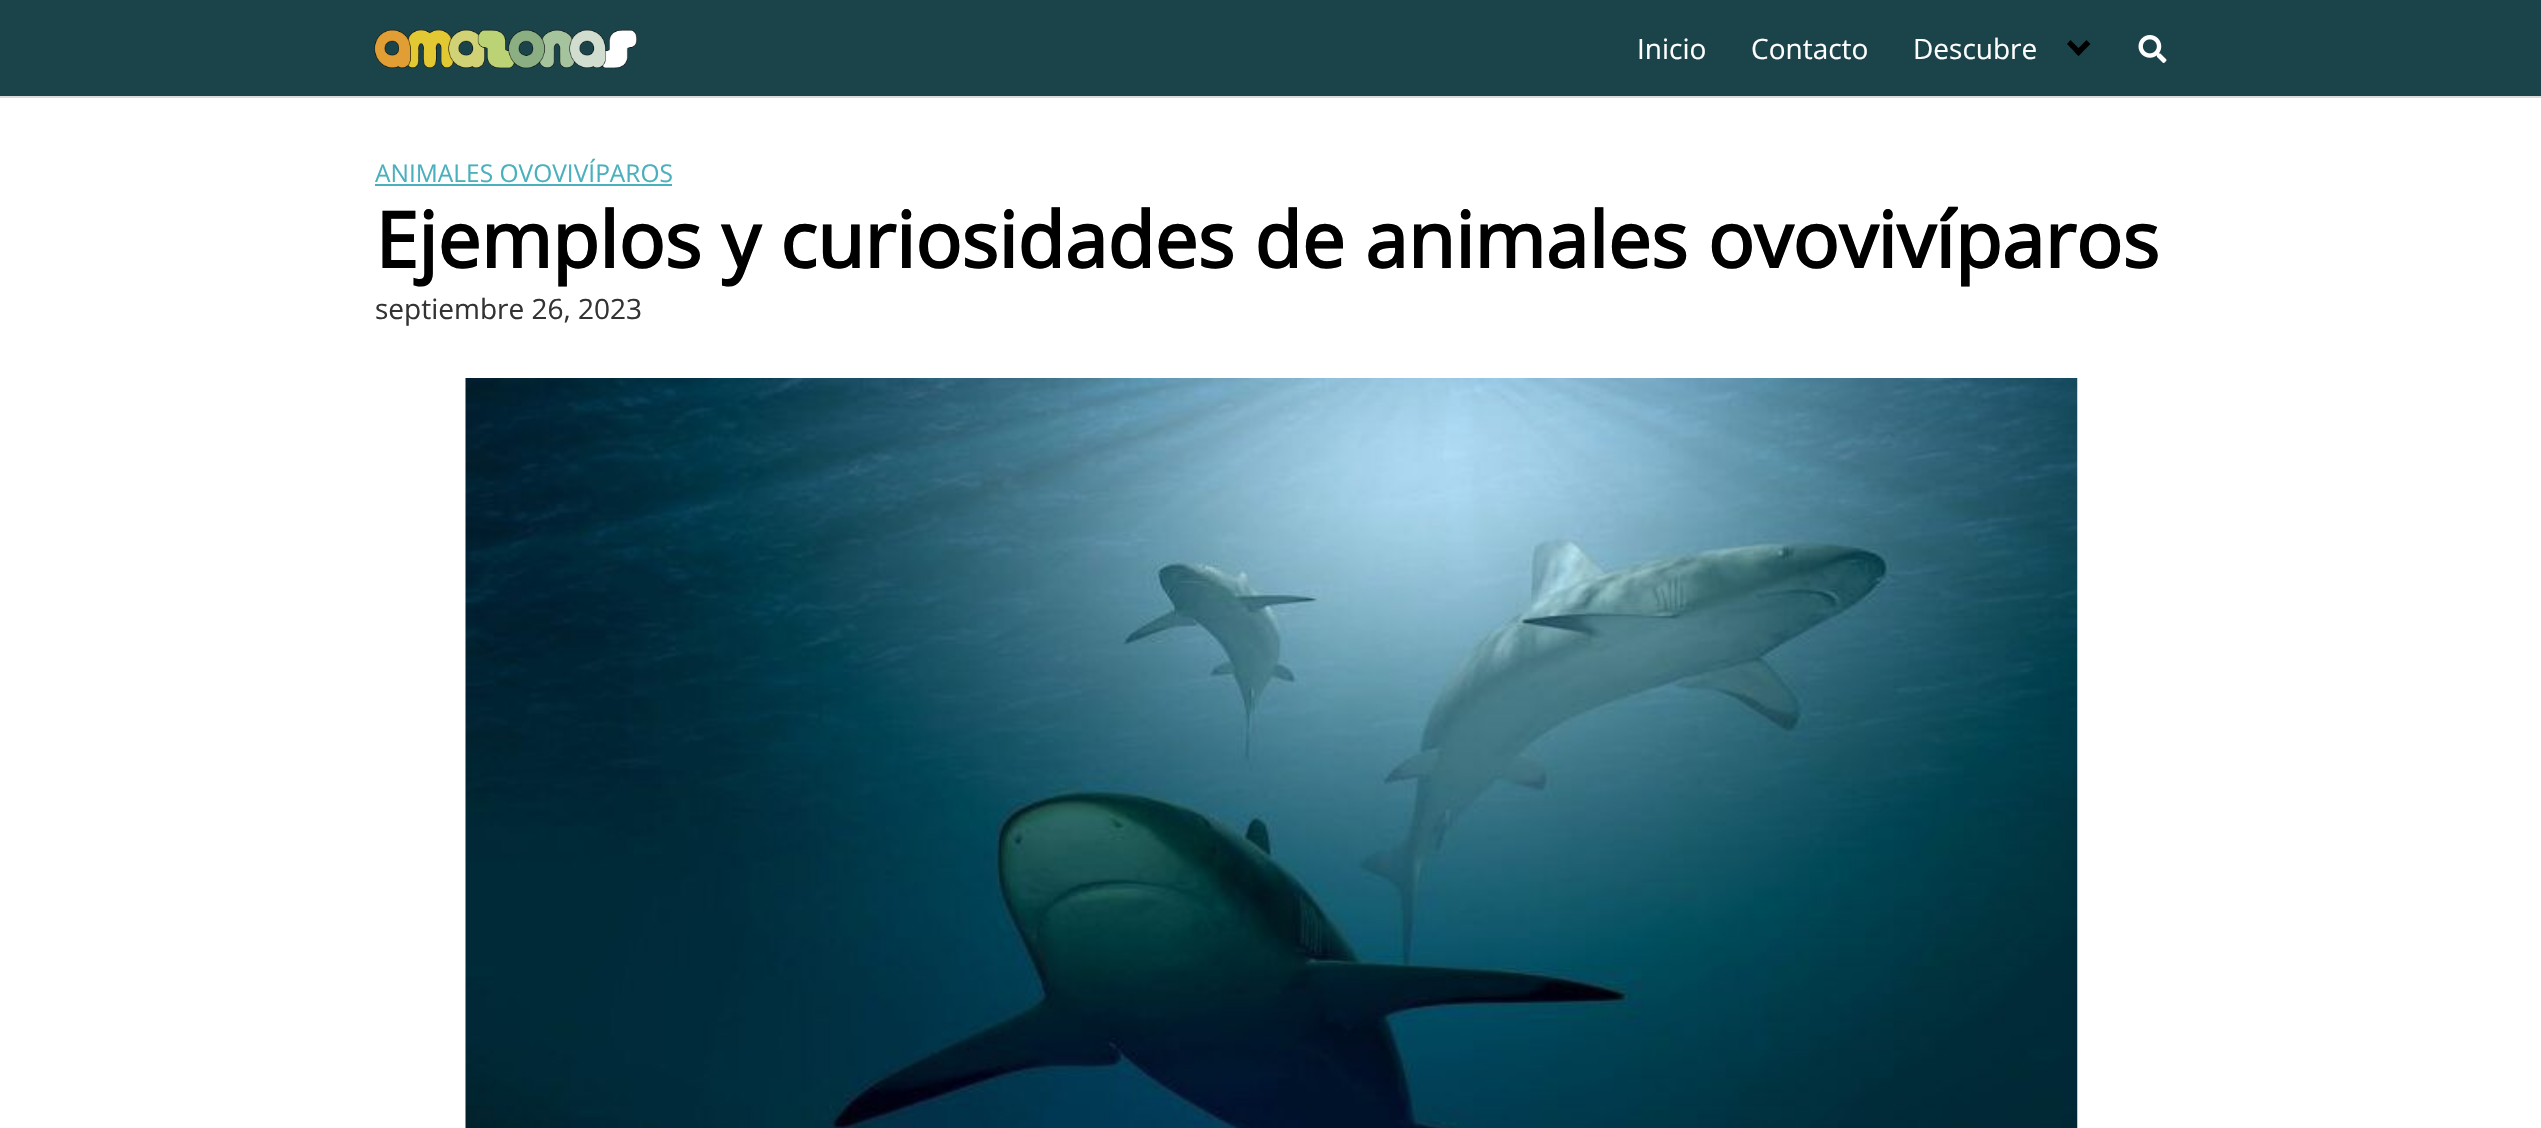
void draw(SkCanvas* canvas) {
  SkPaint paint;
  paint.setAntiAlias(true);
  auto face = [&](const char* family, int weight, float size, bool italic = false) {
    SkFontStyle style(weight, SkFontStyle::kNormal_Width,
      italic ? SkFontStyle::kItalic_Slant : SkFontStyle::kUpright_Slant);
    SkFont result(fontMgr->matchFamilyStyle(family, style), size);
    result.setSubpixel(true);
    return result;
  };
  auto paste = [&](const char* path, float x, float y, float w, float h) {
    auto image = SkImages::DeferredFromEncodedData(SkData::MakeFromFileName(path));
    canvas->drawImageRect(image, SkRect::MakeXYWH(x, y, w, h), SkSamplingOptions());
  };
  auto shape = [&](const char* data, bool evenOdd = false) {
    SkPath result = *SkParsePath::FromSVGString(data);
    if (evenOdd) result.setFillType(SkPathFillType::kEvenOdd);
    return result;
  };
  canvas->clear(0xffffffff);
  paint.setColor(0xff1b444a);
  canvas->drawRect(SkRect::MakeXYWH(0, 0, 2541, 96), paint);
  paint.setColor(0xffdbdbdb);
  canvas->drawRect(SkRect::MakeXYWH(0, 96, 2541, 2), paint);
  paste("img/1.png", 374, 29, 263, 40);
  paint.setColor(0xff000000);
  canvas->drawPath(shape("M2067 44L2070.5 40L2082.5 52L2078.5 56Z"), paint);
  canvas->drawPath(shape("M2074.5 52L2086.5 40L2090.5 44L2078.5 56Z"), paint);
  paste("img/2.png", 2138, 35, 29, 28);
  paint.setColor(0xff4bb0bd);
  canvas->drawRect(SkRect::MakeXYWH(375, 184, 297, 2), paint);
  paste("img/3.png", 465, 378, 1613, 750);
  auto f0 = face("Open Sans", 400, 28);
  paint.setColor(0xffffffff);
  {
    const struct { const char* s; float x, y; } items[] = {
      {"Inicio", 1637, 59},
      {"Contacto", 1751, 59},
      {"Descubre", 1913, 59},
    };
    for (auto [s, x, y] : items) {
      canvas->drawString(s, x, y, f0, paint);
    }
  }
  auto f1 = face("Open Sans", 400, 24.5f);
  paint.setColor(0xff4bb0bd);
  canvas->drawString("ANIMALES OVOVIVÍPAROS", 375, 182, f1, paint);
  auto f2 = face("Open Sans", 700, 77);
  paint.setColor(0xff000000);
  canvas->drawString("Ejemplos y curiosidades de animales ovovivíparos", 375, 268, f2, paint);
  paint.setColor(0xff333333);
  canvas->drawString("septiembre 26, 2023", 375, 319, f0, paint);
}
